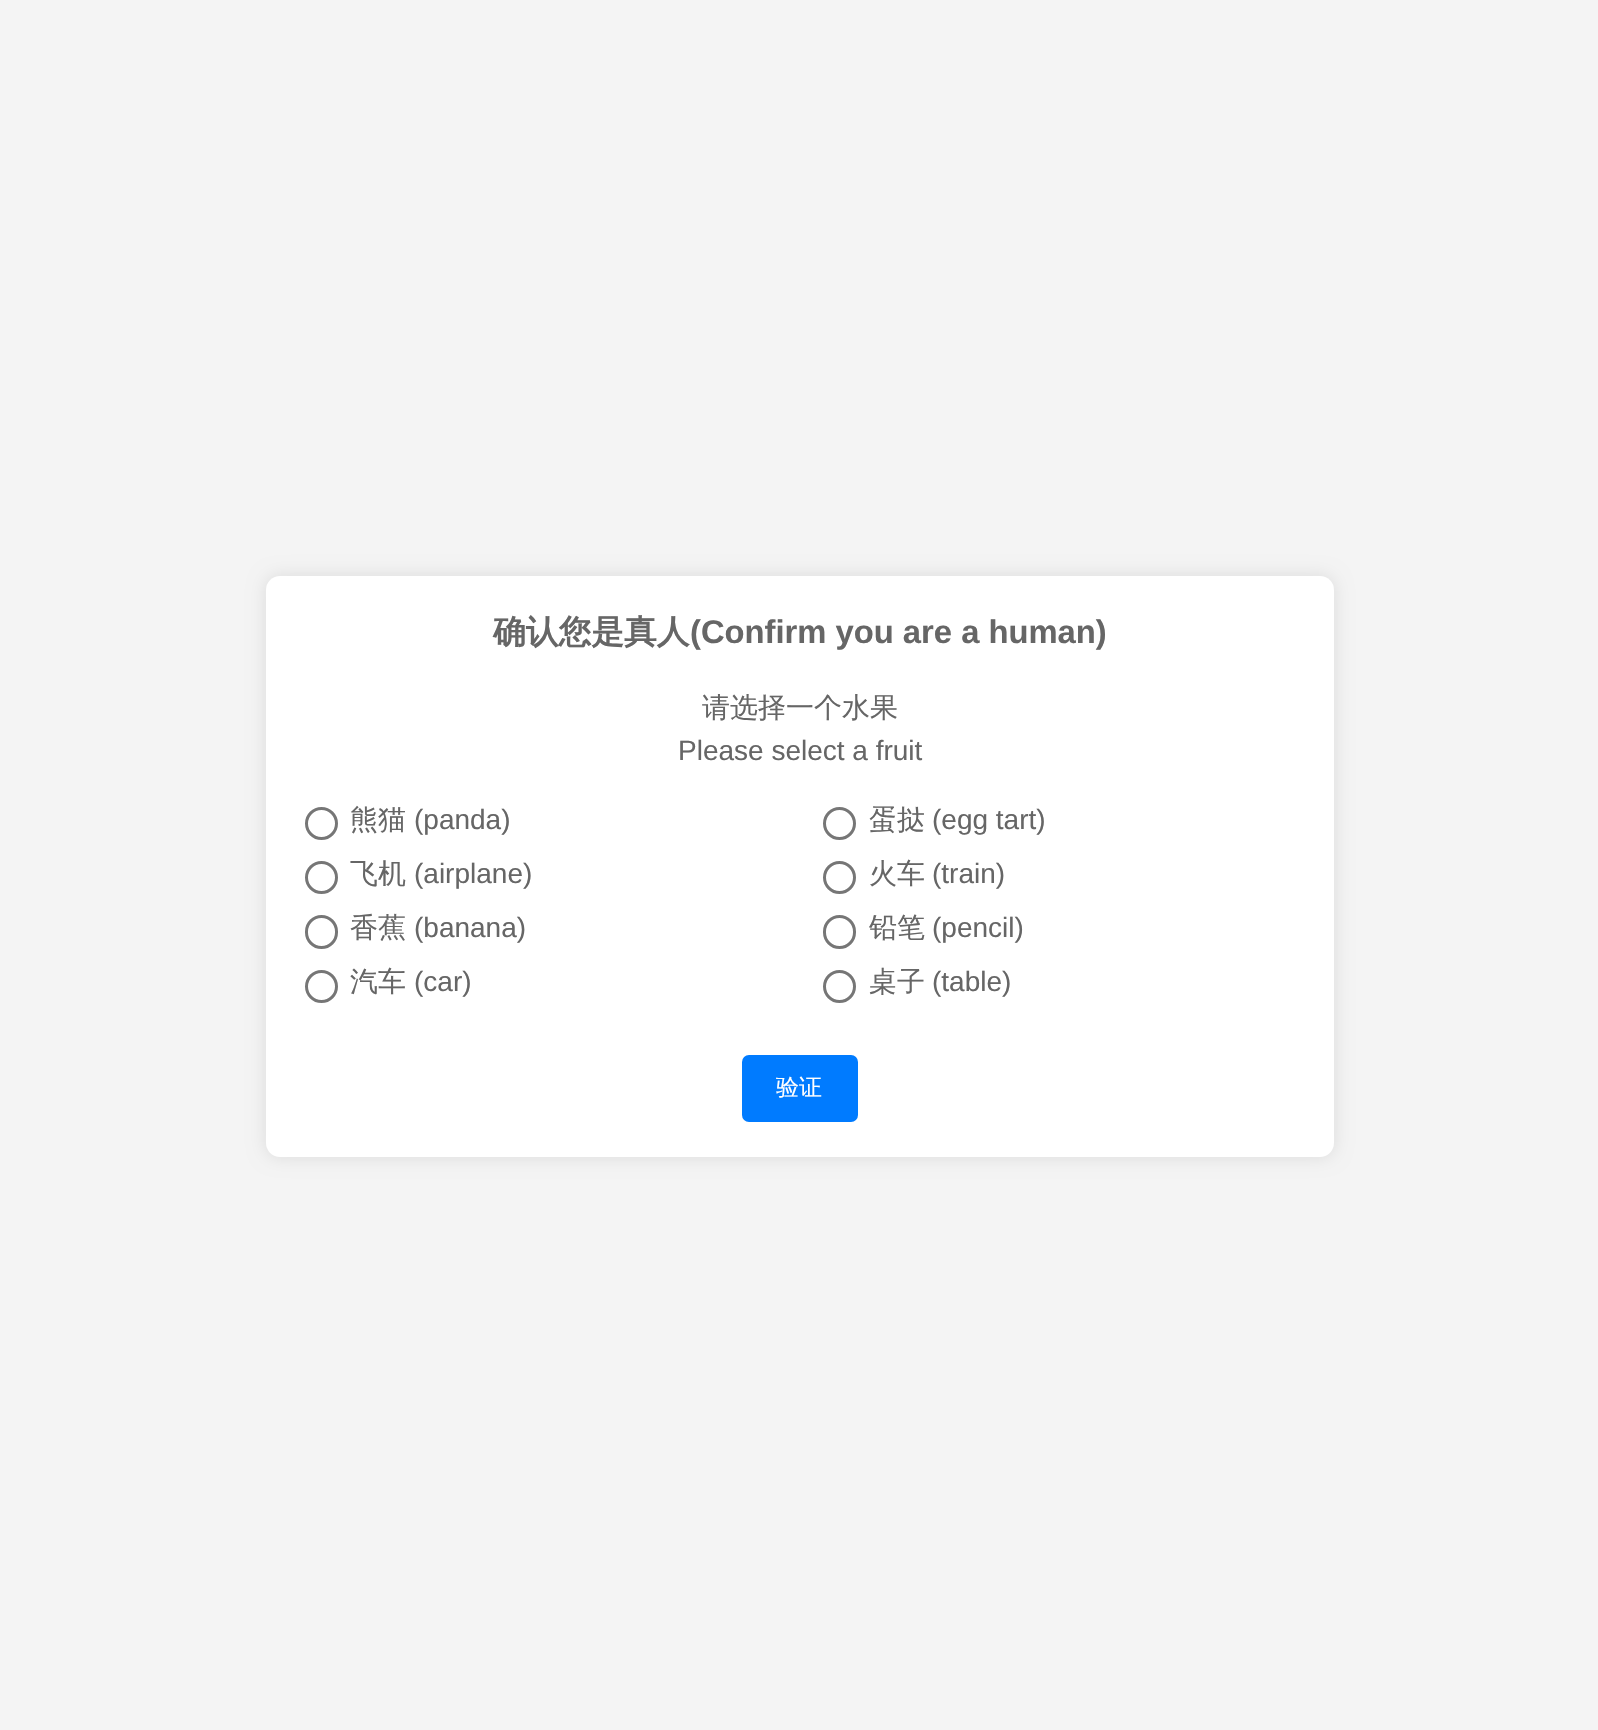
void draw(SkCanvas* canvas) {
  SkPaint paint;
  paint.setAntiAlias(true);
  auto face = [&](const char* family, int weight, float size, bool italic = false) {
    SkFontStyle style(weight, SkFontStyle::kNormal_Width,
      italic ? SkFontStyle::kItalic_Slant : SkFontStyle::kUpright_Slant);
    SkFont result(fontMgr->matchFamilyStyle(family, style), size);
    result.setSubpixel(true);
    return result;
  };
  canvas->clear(0xfff4f4f4);
  paint.setColor(0x1a000000);
  paint.setMaskFilter(SkMaskFilter::MakeBlur(kNormal_SkBlurStyle, 9));
  canvas->drawRoundRect(SkRect::MakeXYWH(266, 576, 1068, 581), 14, 14, paint);
  paint.setMaskFilter(nullptr);
  paint.setColor(0xffffffff);
  canvas->drawRoundRect(SkRect::MakeXYWH(266, 576, 1068, 581), 14, 14, paint);
  paint.setStroke(true);
  paint.setStrokeWidth(3);
  paint.setColor(0xff767676);
  canvas->drawCircle(321.5f, 823.5f, 15, paint);
  canvas->drawCircle(839.5f, 823.5f, 15, paint);
  canvas->drawCircle(321.5f, 877.5f, 15, paint);
  canvas->drawCircle(839.5f, 877.5f, 15, paint);
  canvas->drawRoundRect(SkRect::MakeXYWH(306.5f, 916.5f, 30, 31), 15, 15, paint);
  canvas->drawRoundRect(SkRect::MakeXYWH(824.5f, 916.5f, 30, 31), 15, 15, paint);
  canvas->drawCircle(321.5f, 986.5f, 15, paint);
  canvas->drawCircle(839.5f, 986.5f, 15, paint);
  paint.setStroke(false);
  paint.setColor(0xff007bff);
  canvas->drawRoundRect(SkRect::MakeXYWH(742, 1055, 116, 67), 7, 7, paint);
  auto f0 = face("WenQuanYi Zen Hei", 700, 32.75f);
  paint.setColor(0xff666666);
  canvas->drawString("确认您是真人", 493, 643, f0, paint);
  auto f1 = face("Liberation Sans", 700, 32.75f);
  canvas->drawString("(Confirm you are a human)", 690, 643, f1, paint);
  auto f2 = face("WenQuanYi Zen Hei", 500, 28);
  canvas->drawString("请选择一个水果", 702, 717, f2, paint);
  auto f3 = face("Liberation Sans", 400, 28);
  canvas->drawString("Please select a fruit", 678, 760, f3, paint);
  canvas->drawString("熊猫", 350, 829, f2, paint);
  canvas->drawString("(panda)", 414, 829, f3, paint);
  canvas->drawString("蛋挞", 869, 829, f2, paint);
  canvas->drawString("(egg tart)", 932, 829, f3, paint);
  canvas->drawString("飞机", 350, 883, f2, paint);
  canvas->drawString("(airplane)", 414, 883, f3, paint);
  canvas->drawString("火车", 869, 883, f2, paint);
  canvas->drawString("(train)", 932, 883, f3, paint);
  canvas->drawString("香蕉", 350, 937, f2, paint);
  canvas->drawString("(banana)", 414, 937, f3, paint);
  canvas->drawString("铅笔", 869, 937, f2, paint);
  canvas->drawString("(pencil)", 932, 937, f3, paint);
  canvas->drawString("汽车", 350, 991, f2, paint);
  canvas->drawString("(car)", 414, 991, f3, paint);
  canvas->drawString("桌子", 869, 991, f2, paint);
  canvas->drawString("(table)", 932, 991, f3, paint);
  auto f4 = face("WenQuanYi Zen Hei", 500, 23);
  paint.setColor(0xffffffff);
  canvas->drawString("验证", 776, 1095, f4, paint);
}
